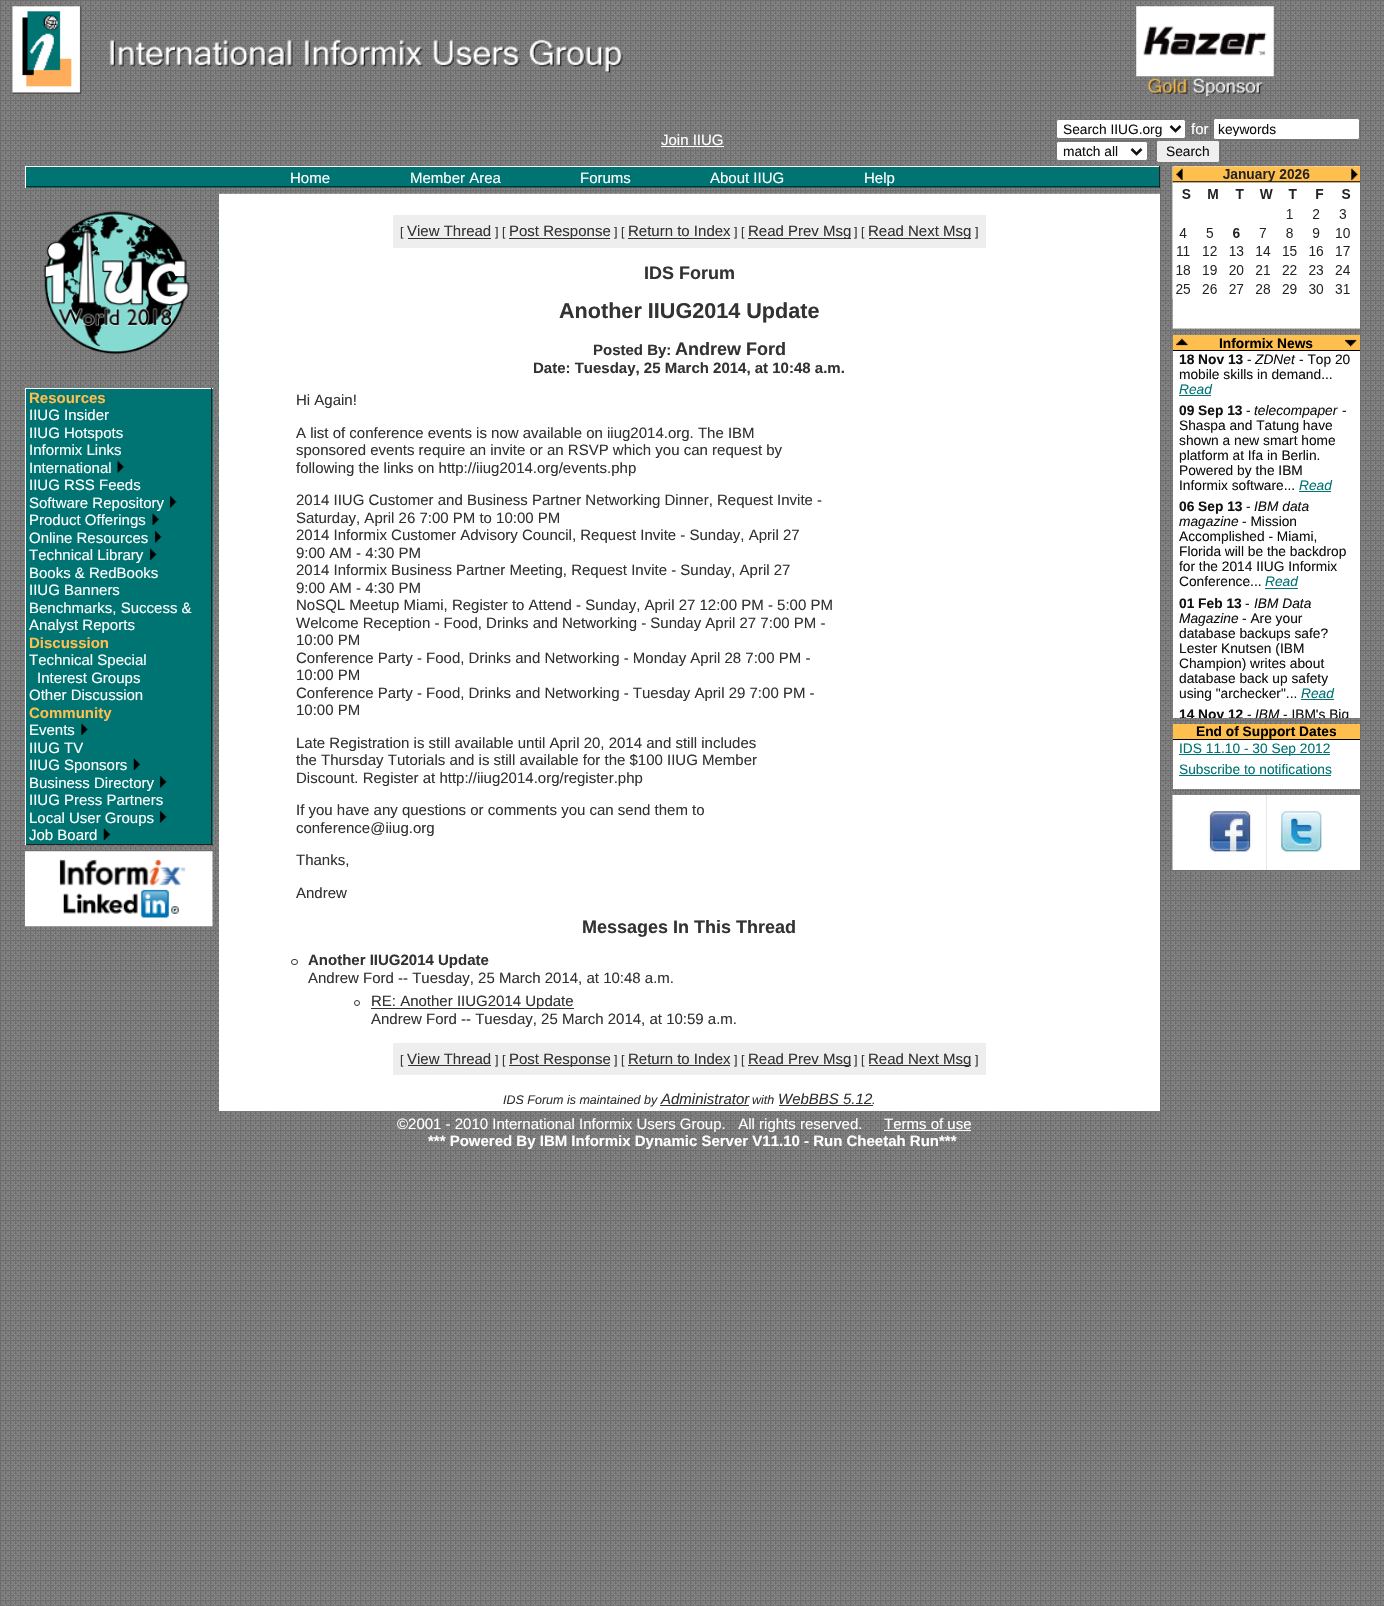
void draw(SkCanvas* canvas) {
  SkPaint paint;
  paint.setAntiAlias(true);
  auto face = [&](const char* family, int weight, float size, bool italic = false) {
    SkFontStyle style(weight, SkFontStyle::kNormal_Width,
      italic ? SkFontStyle::kItalic_Slant : SkFontStyle::kUpright_Slant);
    SkFont result(fontMgr->matchFamilyStyle(family, style), size);
    result.setSubpixel(true);
    return result;
  };
  auto paste = [&](const char* path, float x, float y, float w, float h) {
    auto image = SkImages::DeferredFromEncodedData(SkData::MakeFromFileName(path));
    canvas->drawImageRect(image, SkRect::MakeXYWH(x, y, w, h), SkSamplingOptions());
  };
  auto shape = [&](const char* data, bool evenOdd = false) {
    SkPath result = *SkParsePath::FromSVGString(data);
    if (evenOdd) result.setFillType(SkPathFillType::kEvenOdd);
    return result;
  };
  canvas->clear(0xffffffff);
  paste("img/1.png", 0, 0, 1384, 1606);
  paste("img/2.png", 12, 6, 611, 88);
  paste("img/3.png", 1136, 6, 138, 71);
  paste("img/4.png", 1147, 78, 116, 20);
  paint.setColor(0xffffffff);
  canvas->drawRect(SkRect::MakeXYWH(661, 146, 63, 1), paint);
  canvas->drawRoundRect(SkRect::MakeXYWH(1056.5f, 119.5f, 129, 19), 2, 2, paint);
  paint.setStroke(true);
  paint.setStrokeWidth(1);
  paint.setColor(0xff767676);
  canvas->drawRoundRect(SkRect::MakeXYWH(1056.5f, 119.5f, 129, 19), 2, 2, paint);
  paint.setStrokeWidth(2.5f);
  paint.setColor(0xff111111);
  canvas->drawPath(shape("M1170.5 126L1175.5 131L1180.5 126"), paint);
  paint.setStroke(false);
  paint.setColor(0xffffffff);
  canvas->drawRoundRect(SkRect::MakeXYWH(1213.5f, 118.5f, 146, 21), 2, 2, paint);
  paint.setStroke(true);
  paint.setStrokeWidth(1);
  paint.setColor(0xff767676);
  canvas->drawRoundRect(SkRect::MakeXYWH(1213.5f, 118.5f, 146, 21), 2, 2, paint);
  paint.setStroke(false);
  paint.setColor(0xffffffff);
  canvas->drawRoundRect(SkRect::MakeXYWH(1056.5f, 141.5f, 91, 19), 2, 2, paint);
  paint.setStroke(true);
  paint.setColor(0xff767676);
  canvas->drawRoundRect(SkRect::MakeXYWH(1056.5f, 141.5f, 91, 19), 2, 2, paint);
  paint.setStrokeWidth(2.5f);
  paint.setColor(0xff111111);
  canvas->drawPath(shape("M1131.5 149L1136.5 154L1141.5 149"), paint);
  paint.setStroke(false);
  paint.setColor(0xffefefef);
  canvas->drawRoundRect(SkRect::MakeXYWH(1156.5f, 140.5f, 63, 22), 2, 2, paint);
  paint.setStroke(true);
  paint.setStrokeWidth(1);
  paint.setColor(0xff767676);
  canvas->drawRoundRect(SkRect::MakeXYWH(1156.5f, 140.5f, 63, 22), 2, 2, paint);
  paint.setStroke(false);
  {
    const struct { float x, y, w, h; SkColor color; } items[] = {
      {26, 167, 1133, 21, 0xff007373},
      {25, 166, 1135, 1, 0xffffffff},
      {1159, 166, 1, 22, 0xff222222},
      {25, 186, 1135, 1, 0xff222222},
      {25, 166, 1, 22, 0xffffffff},
    };
    for (auto [x, y, w, h, color] : items) {
      paint.setColor(color);
      canvas->drawRect(SkRect::MakeXYWH(x, y, w, h), paint);
    }
  }
  paste("img/5.png", 43, 211, 147, 144);
  {
    const struct { float x, y, w, h; SkColor color; } items[] = {
      {26, 389, 187, 455, 0xff007373},
      {25, 388, 188, 1, 0xffffffff},
      {211, 388, 1, 457, 0xff222222},
      {25, 844, 188, 1, 0xff222222},
      {25, 388, 1, 457, 0xffffffff},
    };
    for (auto [x, y, w, h, color] : items) {
      paint.setColor(color);
      canvas->drawRect(SkRect::MakeXYWH(x, y, w, h), paint);
    }
  }
  paste("img/6.png", 117, 461, 7, 12);
  paste("img/7.png", 169, 496, 8, 12);
  paste("img/8.png", 152, 513, 7, 12);
  paste("img/7.png", 154, 531, 8, 12);
  paste("img/9.png", 149, 548, 8, 12);
  paste("img/10.png", 81, 723, 7, 12);
  paste("img/11.png", 133, 758, 8, 12);
  paste("img/12.png", 159, 776, 8, 12);
  paste("img/7.png", 159, 811, 8, 12);
  paste("img/11.png", 103, 828, 8, 12);
  paste("img/13.png", 25, 851, 188, 76);
  paste("img/14.png", 218, 193, 942, 251);
  {
    const struct { float x, y, w, h; SkColor color; } items[] = {
      {219, 194, 941, 917, 0xffffffff},
      {393, 215, 593, 33, 0xffeeeeee},
      {408, 238, 83, 1, 0xff333333},
      {509, 238, 101, 1, 0xff333333},
      {628, 238, 102, 1, 0xff333333},
      {748, 238, 103, 1, 0xff333333},
      {869, 238, 102, 1, 0xff333333},
    };
    for (auto [x, y, w, h, color] : items) {
      paint.setColor(color);
      canvas->drawRect(SkRect::MakeXYWH(x, y, w, h), paint);
    }
  }
  paint.setStroke(true);
  canvas->drawRoundRect(SkRect::MakeXYWH(291.5f, 959.5f, 6, 5), 2.5f, 2.5f, paint);
  canvas->drawCircle(357, 1003, 2.5f, paint);
  paint.setStroke(false);
  {
    const struct { float x, y, w, h; SkColor color; } items[] = {
      {371, 1008, 203, 1, 0xff333333},
      {393, 1043, 593, 32, 0xffeeeeee},
      {408, 1065, 83, 1, 0xff333333},
      {509, 1065, 101, 1, 0xff333333},
      {628, 1065, 102, 1, 0xff333333},
      {748, 1065, 103, 1, 0xff333333},
      {869, 1065, 102, 1, 0xff333333},
      {660, 1105, 89, 1, 0xff333333},
      {779, 1105, 94, 1, 0xff333333},
    };
    for (auto [x, y, w, h, color] : items) {
      paint.setColor(color);
      canvas->drawRect(SkRect::MakeXYWH(x, y, w, h), paint);
    }
  }
  paste("img/15.png", 1172, 166, 188, 163);
  paint.setColor(0xffffffff);
  canvas->drawRect(SkRect::MakeXYWH(1173, 351, 187, 367), paint);
  paint.setColor(0xffffbf4f);
  canvas->drawRect(SkRect::MakeXYWH(1173, 335, 187, 15), paint);
  paste("img/16.png", 1176, 338, 12, 8);
  paste("img/17.png", 1345, 339, 12, 8);
  {
    const struct { float x, y, w, h; SkColor color; } items[] = {
      {1173, 350, 187, 1, 0xff000000},
      {1179, 395, 32, 1, 0xff007373},
      {1299, 491, 32, 1, 0xff007373},
      {1265, 588, 33, 1, 0xff007373},
      {1301, 699, 33, 1, 0xff007373},
      {1173, 740, 187, 49, 0xffffffff},
      {1173, 724, 187, 15, 0xffffbf4f},
      {1173, 739, 187, 1, 0xff000000},
      {1179, 754, 151, 1, 0xff007373},
      {1179, 775, 152, 1, 0xff007373},
    };
    for (auto [x, y, w, h, color] : items) {
      paint.setColor(color);
      canvas->drawRect(SkRect::MakeXYWH(x, y, w, h), paint);
    }
  }
  paste("img/18.png", 1172, 795, 95, 75);
  paste("img/19.png", 1266, 795, 94, 75);
  paint.setColor(0xffffffff);
  canvas->drawRect(SkRect::MakeXYWH(884, 1130, 87, 1), paint);
  auto f0 = face("Liberation Sans", 400, 15);
  canvas->drawString("Join IIUG", 661, 145, f0, paint);
  auto f1 = face("Liberation Sans", 400, 13.75f);
  paint.setColor(0xff111111);
  canvas->drawString("Search IIUG.org", 1063, 134, f1, paint);
  paint.setColor(0xffffffff);
  canvas->drawString("for", 1191, 134, f0, paint);
  canvas->save();
  canvas->clipRect(SkRect::MakeXYWH(1218, 121, 137, 15));
  paint.setColor(0xff111111);
  canvas->drawString("keywords", 1218, 134, f1, paint);
  canvas->restore();
  canvas->drawString("match all", 1063, 156, f1, paint);
  canvas->drawString("Search", 1166, 156, f1, paint);
  paint.setColor(0xffffffff);
  {
    const struct { const char* s; float x, y; } items[] = {
      {"Home", 290, 183},
      {"Member Area", 410, 183},
      {"Forums", 580, 183},
      {"About IIUG", 710, 183},
      {"Help", 864, 183},
    };
    for (auto [s, x, y] : items) {
      canvas->drawString(s, x, y, f0, paint);
    }
  }
  auto f2 = face("Liberation Sans", 700, 15);
  paint.setColor(0xffffbf4f);
  canvas->drawString("Resources", 29, 403, f2, paint);
  paint.setColor(0xffffffff);
  {
    const struct { const char* s; float x, y; } items[] = {
      {"IIUG Insider", 29, 420},
      {"IIUG Hotspots", 29, 438},
      {"Informix Links", 29, 455},
      {"International", 29, 473},
      {"IIUG RSS Feeds", 29, 490},
      {"Software Repository", 29, 508},
      {"Product Offerings", 29, 525},
      {"Online Resources", 29, 543},
      {"Technical Library", 29, 560},
      {"Books & RedBooks", 29, 578},
      {"IIUG Banners", 29, 595},
      {"Benchmarks, Success &", 29, 613},
      {"Analyst Reports", 29, 630},
    };
    for (auto [s, x, y] : items) {
      canvas->drawString(s, x, y, f0, paint);
    }
  }
  paint.setColor(0xffffbf4f);
  canvas->drawString("Discussion", 29, 648, f2, paint);
  paint.setColor(0xffffffff);
  {
    const struct { const char* s; float x, y; } items[] = {
      {"Technical Special", 29, 665},
      {"Interest Groups", 37, 683},
      {"Other Discussion", 29, 700},
    };
    for (auto [s, x, y] : items) {
      canvas->drawString(s, x, y, f0, paint);
    }
  }
  paint.setColor(0xffffbf4f);
  canvas->drawString("Community", 29, 718, f2, paint);
  paint.setColor(0xffffffff);
  {
    const struct { const char* s; float x, y; } items[] = {
      {"Events", 29, 735},
      {"IIUG TV", 29, 753},
      {"IIUG Sponsors", 29, 770},
      {"Business Directory", 29, 788},
      {"IIUG Press Partners", 29, 805},
      {"Local User Groups", 29, 823},
      {"Job Board", 29, 840},
    };
    for (auto [s, x, y] : items) {
      canvas->drawString(s, x, y, f0, paint);
    }
  }
  auto f3 = face("Liberation Sans", 400, 12.5f);
  paint.setColor(0xff333333);
  canvas->drawString("[", 400, 236, f3, paint);
  canvas->drawString("View Thread", 407, 236, f0, paint);
  canvas->drawString("] [", 495, 236, f3, paint);
  canvas->drawString("Post Response", 509, 236, f0, paint);
  canvas->drawString("] [", 614, 236, f3, paint);
  canvas->drawString("Return to Index", 628, 236, f0, paint);
  canvas->drawString("] [", 734, 236, f3, paint);
  canvas->drawString("Read Prev Msg", 748, 236, f0, paint);
  canvas->drawString("] [", 854, 236, f3, paint);
  canvas->drawString("Read Next Msg", 868, 236, f0, paint);
  canvas->drawString("]", 975, 236, f3, paint);
  auto f4 = face("Liberation Sans", 700, 18);
  canvas->drawString("IDS Forum", 644, 279, f4, paint);
  auto f5 = face("Liberation Sans", 700, 21.6f);
  canvas->drawString("Another IIUG2014 Update", 559, 318, f5, paint);
  canvas->drawString("Posted By:", 593, 355, f2, paint);
  canvas->drawString("Andrew Ford", 675, 355, f4, paint);
  canvas->drawString("Date: Tuesday, 25 March 2014, at 10:48 a.m.", 533, 373, f2, paint);
  {
    const struct { const char* s; float x, y; } items[] = {
      {"Hi Again!", 296, 405},
      {"A list of conference events is now available on iiug2014.org. The IBM", 296, 438},
      {"sponsored events require an invite or an RSVP which you can request by", 296, 455},
      {"following the links on http://iiug2014.org/events.php", 296, 473},
      {"2014 IIUG Customer and Business Partner Networking Dinner, Request Invite -", 296, 505},
      {"Saturday, April 26 7:00 PM to 10:00 PM", 296, 523},
      {"2014 Informix Customer Advisory Council, Request Invite - Sunday, April 27", 296, 540},
      {"9:00 AM - 4:30 PM", 296, 558},
      {"2014 Informix Business Partner Meeting, Request Invite - Sunday, April 27", 296, 575},
      {"9:00 AM - 4:30 PM", 296, 593},
      {"NoSQL Meetup Miami, Register to Attend - Sunday, April 27 12:00 PM - 5:00 PM", 296, 610},
      {"Welcome Reception - Food, Drinks and Networking - Sunday April 27 7:00 PM -", 296, 628},
      {"10:00 PM", 296, 645},
      {"Conference Party - Food, Drinks and Networking - Monday April 28 7:00 PM -", 296, 663},
      {"10:00 PM", 296, 680},
      {"Conference Party - Food, Drinks and Networking - Tuesday April 29 7:00 PM -", 296, 698},
      {"10:00 PM", 296, 715},
      {"Late Registration is still available until April 20, 2014 and still includes", 296, 748},
      {"the Thursday Tutorials and is still available for the $100 IIUG Member", 296, 765},
      {"Discount. Register at http://iiug2014.org/register.php", 296, 783},
      {"If you have any questions or comments you can send them to", 296, 815},
      {"conference@iiug.org", 296, 833},
      {"Thanks,", 296, 865},
      {"Andrew", 296, 898},
    };
    for (auto [s, x, y] : items) {
      canvas->drawString(s, x, y, f0, paint);
    }
  }
  canvas->drawString("Messages In This Thread", 582, 933, f4, paint);
  canvas->drawString("Another IIUG2014 Update", 308, 965, f2, paint);
  {
    const struct { const char* s; float x, y; } items[] = {
      {"Andrew Ford -- Tuesday, 25 March 2014, at 10:48 a.m.", 308, 983},
      {"RE: Another IIUG2014 Update", 371, 1006},
      {"Andrew Ford -- Tuesday, 25 March 2014, at 10:59 a.m.", 371, 1024},
    };
    for (auto [s, x, y] : items) {
      canvas->drawString(s, x, y, f0, paint);
    }
  }
  canvas->drawString("[", 400, 1064, f3, paint);
  canvas->drawString("View Thread", 407, 1064, f0, paint);
  canvas->drawString("] [", 495, 1064, f3, paint);
  canvas->drawString("Post Response", 509, 1064, f0, paint);
  canvas->drawString("] [", 614, 1064, f3, paint);
  canvas->drawString("Return to Index", 628, 1064, f0, paint);
  canvas->drawString("] [", 734, 1064, f3, paint);
  canvas->drawString("Read Prev Msg", 748, 1064, f0, paint);
  canvas->drawString("] [", 854, 1064, f3, paint);
  canvas->drawString("Read Next Msg", 868, 1064, f0, paint);
  canvas->drawString("]", 975, 1064, f3, paint);
  auto f6 = face("Liberation Sans", 400, 12.5f, true);
  canvas->drawString("IDS Forum is maintained by", 503, 1104, f6, paint);
  auto f7 = face("Liberation Sans", 400, 15, true);
  canvas->drawString("Administrator", 661, 1104, f7, paint);
  canvas->drawString("with", 752, 1104, f6, paint);
  canvas->drawString("WebBBS 5.12", 778, 1104, f7, paint);
  canvas->drawString(".", 872, 1104, f6, paint);
  auto f8 = face("Liberation Sans", 700, 13.75f);
  paint.setColor(0xff000000);
  canvas->drawString("Informix News", 1219, 348, f8, paint);
  paint.setColor(0xff111111);
  canvas->drawString("18 Nov 13", 1179, 364, f8, paint);
  canvas->drawString("-", 1247, 364, f1, paint);
  auto f9 = face("Liberation Sans", 400, 13.75f, true);
  canvas->drawString("ZDNet", 1255, 364, f9, paint);
  canvas->drawString("- Top 20", 1299, 364, f1, paint);
  canvas->drawString("mobile skills in demand...", 1179, 379, f1, paint);
  paint.setColor(0xff007373);
  canvas->drawString("Read", 1179, 394, f9, paint);
  paint.setColor(0xff111111);
  canvas->drawString("09 Sep 13", 1179, 415, f8, paint);
  canvas->drawString("-", 1246, 415, f1, paint);
  canvas->drawString("telecompaper", 1254, 415, f9, paint);
  {
    const struct { const char* s; float x, y; } items[] = {
      {"-", 1342, 415},
      {"Shaspa and Tatung have", 1179, 430},
      {"shown a new smart home", 1179, 445},
      {"platform at Ifa in Berlin.", 1179, 460},
      {"Powered by the IBM", 1179, 475},
      {"Informix software...", 1179, 490},
    };
    for (auto [s, x, y] : items) {
      canvas->drawString(s, x, y, f1, paint);
    }
  }
  paint.setColor(0xff007373);
  canvas->drawString("Read", 1299, 490, f9, paint);
  paint.setColor(0xff111111);
  canvas->drawString("06 Sep 13", 1179, 511, f8, paint);
  canvas->drawString("-", 1246, 511, f1, paint);
  canvas->drawString("IBM data", 1254, 511, f9, paint);
  canvas->drawString("magazine", 1179, 526, f9, paint);
  {
    const struct { const char* s; float x, y; } items[] = {
      {"- Mission", 1242, 526},
      {"Accomplished - Miami,", 1179, 541},
      {"Florida will be the backdrop", 1179, 556},
      {"for the 2014 IIUG Informix", 1179, 571},
      {"Conference...", 1179, 586},
    };
    for (auto [s, x, y] : items) {
      canvas->drawString(s, x, y, f1, paint);
    }
  }
  paint.setColor(0xff007373);
  canvas->drawString("Read", 1265, 586, f9, paint);
  paint.setColor(0xff111111);
  canvas->drawString("01 Feb 13", 1179, 608, f8, paint);
  canvas->drawString("-", 1245, 608, f1, paint);
  canvas->drawString("IBM Data", 1254, 608, f9, paint);
  canvas->drawString("Magazine", 1179, 623, f9, paint);
  {
    const struct { const char* s; float x, y; } items[] = {
      {"- Are your", 1242, 623},
      {"database backups safe?", 1179, 638},
      {"Lester Knutsen (IBM", 1179, 653},
      {"Champion) writes about", 1179, 668},
      {"database back up safety", 1179, 683},
      {"using \"archecker\"...", 1179, 698},
    };
    for (auto [s, x, y] : items) {
      canvas->drawString(s, x, y, f1, paint);
    }
  }
  paint.setColor(0xff007373);
  canvas->drawString("Read", 1301, 698, f9, paint);
  canvas->save();
  canvas->clipRect(SkRect::MakeXYWH(1173, 351, 187, 367));
  paint.setColor(0xff111111);
  canvas->drawString("14 Nov 12", 1179, 719, f8, paint);
  canvas->restore();
  canvas->drawString("-", 1247, 719, f1, paint);
  canvas->save();
  canvas->clipRect(SkRect::MakeXYWH(1173, 351, 187, 367));
  canvas->drawString("IBM", 1255, 719, f9, paint);
  canvas->drawString("- IBM's Big", 1283, 719, f1, paint);
  canvas->restore();
  paint.setColor(0xff000000);
  canvas->drawString("End of Support Dates", 1196, 736, f8, paint);
  paint.setColor(0xff007373);
  canvas->drawString("IDS 11.10 - 30 Sep 2012", 1179, 753, f1, paint);
  canvas->drawString("Subscribe to notifications", 1179, 774, f1, paint);
  paint.setColor(0xffffffff);
  canvas->drawString("©2001 - 2010 International Informix Users Group.   All rights reserved.", 397, 1129, f0, paint);
  canvas->drawString("Terms of use", 884, 1129, f0, paint);
  canvas->drawString("*** Powered By IBM Informix Dynamic Server V11.10 - Run Cheetah Run***", 428, 1146, f2, paint);
}
